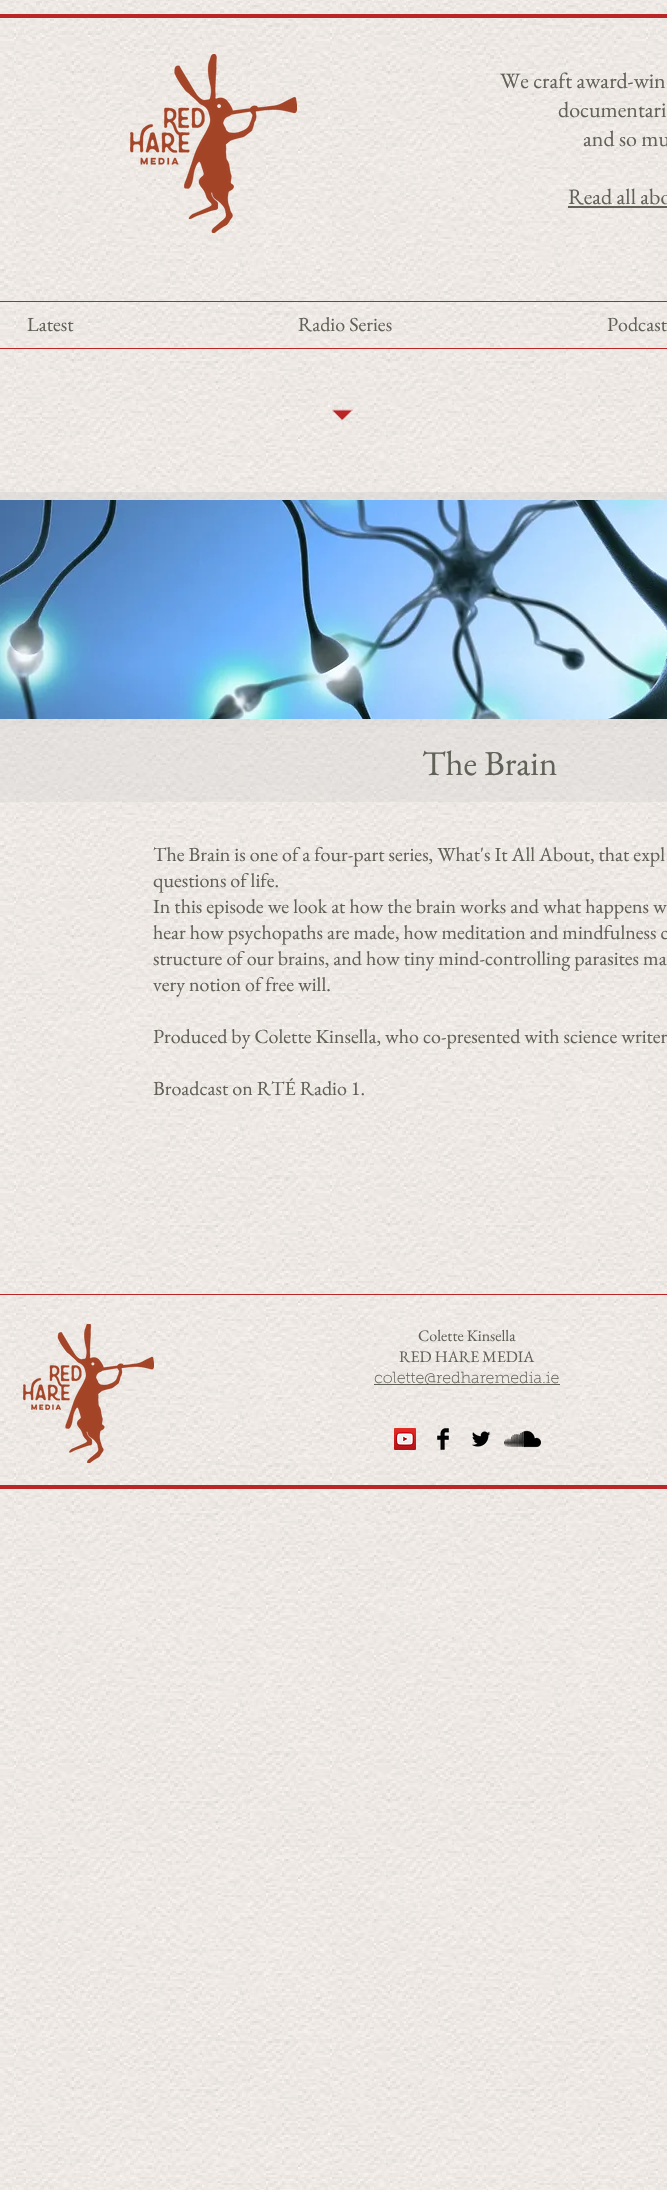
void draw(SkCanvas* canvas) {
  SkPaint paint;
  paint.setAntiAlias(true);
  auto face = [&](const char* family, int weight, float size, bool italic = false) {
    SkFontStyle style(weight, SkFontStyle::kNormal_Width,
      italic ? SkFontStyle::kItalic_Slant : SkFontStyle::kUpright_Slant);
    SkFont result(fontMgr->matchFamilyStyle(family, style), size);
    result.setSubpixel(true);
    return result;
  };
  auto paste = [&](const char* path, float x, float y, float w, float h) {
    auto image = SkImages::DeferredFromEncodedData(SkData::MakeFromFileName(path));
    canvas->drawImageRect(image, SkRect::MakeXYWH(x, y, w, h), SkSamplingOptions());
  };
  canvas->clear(0xffffffff);
  paste("img/1.png", 0, 0, 667, 2190);
  paint.setColor(0xffba2525);
  canvas->drawRect(SkRect::MakeXYWH(0, 14, 667, 4), paint);
  paste("img/2.png", 130, 54, 167, 179);
  {
    const struct { float x, y, w, h; SkColor color; } items[] = {
      {568, 206, 99, 2, 0xff616158},
      {0, 301, 667, 1, 0xffba2525},
      {0, 348, 667, 1, 0xffba2525},
    };
    for (auto [x, y, w, h, color] : items) {
      paint.setColor(color);
      canvas->drawRect(SkRect::MakeXYWH(x, y, w, h), paint);
    }
  }
  paste("img/3.png", 332, 409, 22, 12);
  paint.setColor(0x30cccccc);
  canvas->drawRect(SkRect::MakeXYWH(0, 492, 667, 235), paint);
  paint.setStroke(true);
  paint.setStrokeWidth(8);
  canvas->drawRect(SkRect::MakeXYWH(-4, 496, 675, 227), paint);
  paste("img/4.png", 0, 500, 667, 219);
  paint.setStroke(false);
  paint.setColor(0x4dcccccc);
  canvas->drawRect(SkRect::MakeXYWH(0, 727, 667, 75), paint);
  paint.setColor(0xffba2525);
  canvas->drawRect(SkRect::MakeXYWH(0, 1294, 667, 1), paint);
  paste("img/5.png", 23, 1324, 131, 139);
  paint.setColor(0xff616158);
  canvas->drawRect(SkRect::MakeXYWH(374, 1384, 186, 1), paint);
  paste("img/6.png", 394, 1428, 22, 22);
  paste("img/7.png", 437, 1428, 12, 22);
  paste("img/8.png", 472, 1431, 19, 16);
  paste("img/9.png", 504, 1430, 37, 18);
  paint.setColor(0xffba2525);
  canvas->drawRect(SkRect::MakeXYWH(0, 1485, 667, 4), paint);
  auto f0 = face("EB Garamond", 400, 22);
  paint.setColor(0xff616158);
  {
    const struct { const char* s; float x, y; } items[] = {
      {"We craft award-win", 500, 88},
      {"documentari", 558, 117},
      {"and so mu", 583, 146},
      {"Read all abo", 568, 204},
    };
    for (auto [s, x, y] : items) {
      canvas->drawString(s, x, y, f0, paint);
    }
  }
  auto f1 = face("EB Garamond", 400, 20);
  {
    const struct { const char* s; float x, y; } items[] = {
      {"Latest", 27, 331},
      {"Radio Series", 298, 331},
      {"Podcast", 607, 331},
    };
    for (auto [s, x, y] : items) {
      canvas->drawString(s, x, y, f1, paint);
    }
  }
  auto f2 = face("EB Garamond", 400, 35);
  canvas->drawString("The Brain", 422, 775, f2, paint);
  {
    const struct { const char* s; float x, y; } items[] = {
      {"The Brain is one of a four-part series, What's It All About, that expl", 153, 861},
      {"questions of life.", 153, 887},
      {"In this episode we look at how the brain works and what happens w", 153, 913},
      {"hear how psychopaths are made, how meditation and mindfulness c", 153, 939},
      {"structure of our brains, and how tiny mind-controlling parasites ma", 153, 965},
      {"very notion of free will.", 153, 991},
      {"Produced by Colette Kinsella, who co-presented with science writer", 153, 1043},
      {"Broadcast on RTÉ Radio 1.", 153, 1095},
    };
    for (auto [s, x, y] : items) {
      canvas->drawString(s, x, y, f1, paint);
    }
  }
  auto f3 = face("EB Garamond", 400, 16);
  canvas->drawString("Colette Kinsella", 418, 1341, f3, paint);
  canvas->drawString("RED HARE MEDIA", 399, 1362, f3, paint);
  auto f4 = face("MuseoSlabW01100", 100, 16);
  canvas->drawString("colette@redharemedia.ie", 374, 1383, f4, paint);
}
